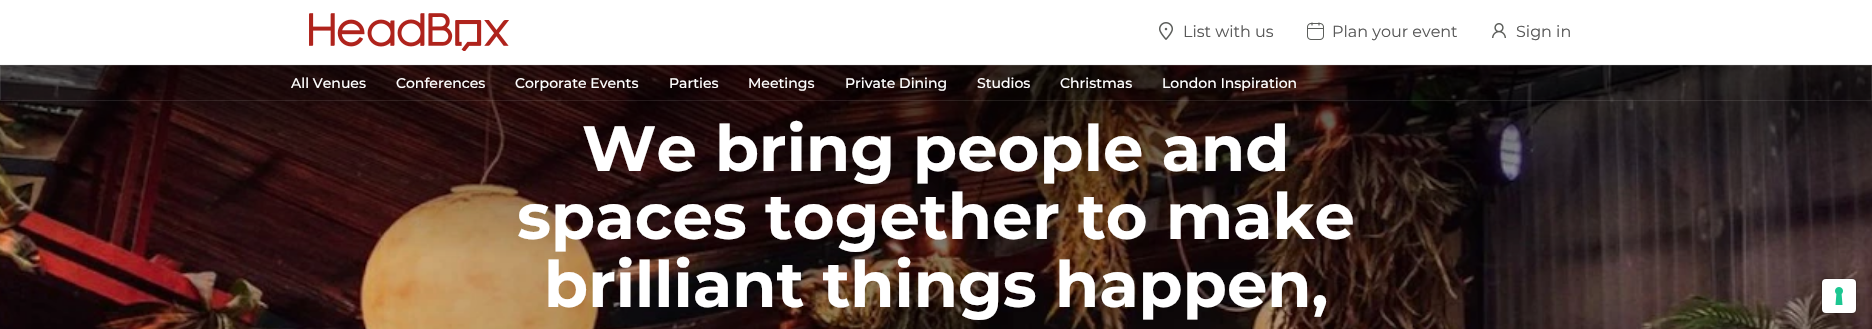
void draw(SkCanvas* canvas) {
  SkPaint paint;
  paint.setAntiAlias(true);
  auto face = [&](const char* family, int weight, float size, bool italic = false) {
    SkFontStyle style(weight, SkFontStyle::kNormal_Width,
      italic ? SkFontStyle::kItalic_Slant : SkFontStyle::kUpright_Slant);
    SkFont result(fontMgr->matchFamilyStyle(family, style), size);
    result.setSubpixel(true);
    return result;
  };
  auto paste = [&](const char* path, float x, float y, float w, float h) {
    auto image = SkImages::DeferredFromEncodedData(SkData::MakeFromFileName(path));
    canvas->drawImageRect(image, SkRect::MakeXYWH(x, y, w, h), SkSamplingOptions());
  };
  canvas->clear(0xffffffff);
  paint.setColor(0xfff5f5f5);
  canvas->drawRect(SkRect::MakeXYWH(0, 64, 1872, 1), paint);
  paste("img/1.png", 309, 13, 200, 38);
  paste("img/2.png", 1159, 22, 14, 18);
  paste("img/3.png", 1307, 22, 17, 18);
  paste("img/4.png", 1492, 23, 14, 15);
  paste("img/5.png", 0, 65, 1872, 264);
  paint.setStroke(true);
  paint.setStrokeWidth(1);
  paint.setColor(0x1af5f5f5);
  canvas->drawRect(SkRect::MakeXYWH(0.5f, 65.5f, 1871, 35), paint);
  paint.setColor(0x26000000);
  canvas->drawRoundRect(SkRect::MakeXYWH(1821.5f, 278.5f, 35, 35), 4.5f, 4.5f, paint);
  paint.setStroke(false);
  paint.setColor(0xffffffff);
  canvas->drawRoundRect(SkRect::MakeXYWH(1822, 279, 34, 34), 4, 4, paint);
  paste("img/6.png", 1835, 287, 8, 18);
  auto f0 = face("Montserrat", 400, 16);
  paint.setColor(0xff595959);
  {
    const struct { const char* s; float x, y; } items[] = {
      {"List with us", 1183, 37},
      {"Plan your event", 1332, 37},
      {"Sign in", 1516, 37},
    };
    for (auto [s, x, y] : items) {
      canvas->drawString(s, x, y, f0, paint);
    }
  }
  auto f1 = face("Montserrat", 500, 14);
  paint.setColor(0xffffffff);
  {
    const struct { const char* s; float x, y; } items[] = {
      {"All Venues", 291, 88},
      {"Conferences", 396, 88},
      {"Corporate Events", 515, 88},
      {"Parties", 669, 88},
      {"Meetings", 748, 88},
      {"Private Dining", 845, 88},
      {"Studios", 977, 88},
      {"Christmas", 1060, 88},
      {"London Inspiration", 1162, 88},
    };
    for (auto [s, x, y] : items) {
      canvas->drawString(s, x, y, f1, paint);
    }
  }
  auto f2 = face("Montserrat", 700, 64);
  {
    const struct { const char* s; float x, y; } items[] = {
      {"We bring people and", 582, 171},
      {"spaces together to make", 517, 239},
      {"brilliant things happen,", 544, 307},
    };
    for (auto [s, x, y] : items) {
      canvas->drawString(s, x, y, f2, paint);
    }
  }
}
